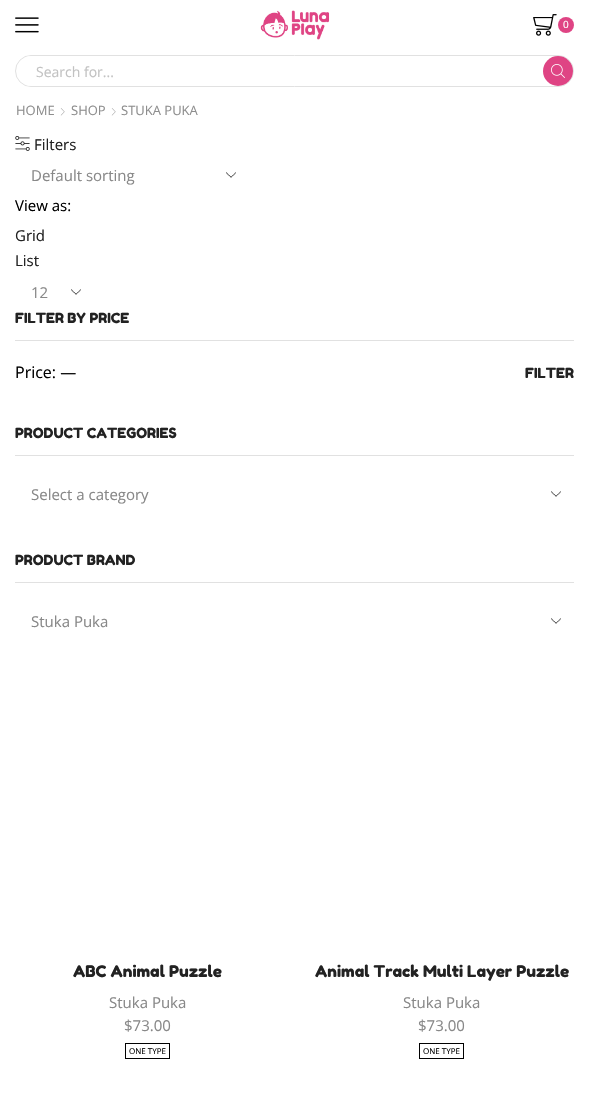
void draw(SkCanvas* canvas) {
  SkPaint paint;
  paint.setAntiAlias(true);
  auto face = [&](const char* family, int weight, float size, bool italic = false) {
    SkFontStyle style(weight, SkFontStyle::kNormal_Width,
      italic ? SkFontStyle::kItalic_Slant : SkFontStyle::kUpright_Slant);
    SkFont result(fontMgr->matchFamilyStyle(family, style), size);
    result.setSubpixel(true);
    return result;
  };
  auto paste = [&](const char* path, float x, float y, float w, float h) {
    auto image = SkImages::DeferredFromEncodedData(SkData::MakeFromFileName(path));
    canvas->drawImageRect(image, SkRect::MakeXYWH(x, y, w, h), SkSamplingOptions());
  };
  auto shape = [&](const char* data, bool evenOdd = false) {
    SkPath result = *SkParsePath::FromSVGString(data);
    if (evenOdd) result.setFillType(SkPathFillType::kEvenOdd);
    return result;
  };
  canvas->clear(0xffffffff);
  paste("img/1.png", 15, 17, 24, 16);
  paste("img/2.png", 260, 10, 70, 30);
  paste("img/3.png", 533, 14, 24, 22);
  paint.setColor(0xffdf4484);
  canvas->drawCircle(566, 25, 8, paint);
  paint.setStroke(true);
  paint.setStrokeWidth(1);
  paint.setColor(0xffe1e1e1);
  canvas->drawRoundRect(SkRect::MakeXYWH(15.5f, 55.5f, 558, 31), 15.5f, 15.5f, paint);
  canvas->save();
  canvas->clipPath(shape("M31 56H558C566.5 56 573 62.5 573 71C573 79.5 566.5 86 558 86H31C22.5 86 16 79.5 16 71C16 62.5 22.5 56 31 56Z"), true);
  paint.setStroke(false);
  paint.setColor(0xffffffff);
  canvas->drawRect(SkRect::MakeXYWH(26, 56, 517, 30), paint);
  canvas->restore();
  paint.setColor(0xffdf4484);
  canvas->drawCircle(558, 71, 15, paint);
  paste("img/4.png", 551, 64, 14, 14);
  paste("img/5.png", 60, 108, 5, 8);
  paste("img/5.png", 111, 108, 5, 8);
  paste("img/6.png", 15, 136, 15, 15);
  paste("img/7.png", 226, 172, 10, 6);
  paste("img/8.png", 71, 289, 10, 6);
  paint.setColor(0xffe1e1e1);
  canvas->drawRect(SkRect::MakeXYWH(15, 340, 559, 1), paint);
  canvas->drawRect(SkRect::MakeXYWH(15, 455, 559, 1), paint);
  paste("img/8.png", 551, 491, 10, 6);
  canvas->drawRect(SkRect::MakeXYWH(15, 582, 559, 1), paint);
  paste("img/8.png", 551, 618, 10, 6);
  paint.setStroke(true);
  paint.setColor(0xff000000);
  canvas->drawRect(SkRect::MakeXYWH(125.5f, 1043.5f, 44, 15), paint);
  canvas->drawRect(SkRect::MakeXYWH(419.5f, 1043.5f, 44, 15), paint);
  auto f0 = face("Open Sans", 400, 10);
  paint.setStroke(false);
  paint.setColor(0xffffffff);
  canvas->drawString("0", 563, 28, f0, paint);
  auto f1 = face("Open Sans", 400, 14);
  paint.setColor(0xffc2c2c2);
  canvas->drawString("Search for...", 36, 77, f1, paint);
  auto f2 = face("Open Sans", 400, 13);
  paint.setColor(0xff8e8e8e);
  {
    const struct { const char* s; float x, y; } items[] = {
      {"HOME", 16, 115},
      {"SHOP", 71, 115},
      {"STUKA PUKA", 121, 115},
    };
    for (auto [s, x, y] : items) {
      canvas->drawString(s, x, y, f2, paint);
    }
  }
  auto f3 = face("Open Sans", 400, 15);
  paint.setColor(0xff222222);
  canvas->drawString("Filters", 34, 150, f3, paint);
  paint.setColor(0xff888888);
  canvas->drawString("Default sorting", 31, 181, f3, paint);
  paint.setColor(0xff000000);
  canvas->drawString("View as:", 15, 211, f3, paint);
  paint.setColor(0xff222222);
  canvas->drawString("Grid", 15, 241, f3, paint);
  canvas->drawString("List", 15, 266, f3, paint);
  paint.setColor(0xff888888);
  canvas->drawString("12", 31, 298, f3, paint);
  auto f4 = face("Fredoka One", 400, 14);
  paint.setColor(0xff222222);
  canvas->drawString("FILTER BY PRICE", 15, 323, f4, paint);
  auto f5 = face("Open Sans", 400, 16);
  paint.setColor(0xff000000);
  canvas->drawString("Price: —", 15, 378, f5, paint);
  paint.setColor(0xff222222);
  canvas->drawString("FILTER", 525, 378, f4, paint);
  canvas->drawString("PRODUCT CATEGORIES", 15, 438, f4, paint);
  paint.setColor(0xff888888);
  canvas->drawString("Select a category", 31, 500, f3, paint);
  paint.setColor(0xff222222);
  canvas->drawString("PRODUCT BRAND", 15, 565, f4, paint);
  paint.setColor(0xff888888);
  canvas->drawString("Stuka Puka", 31, 627, f3, paint);
  auto f6 = face("Fredoka One", 400, 16);
  paint.setColor(0xff222222);
  canvas->drawString("ABC Animal Puzzle", 73, 977, f6, paint);
  paint.setColor(0xff888888);
  canvas->drawString("Stuka Puka", 109, 1008, f3, paint);
  canvas->drawString("$73.00", 124, 1031, f3, paint);
  auto f7 = face("Open Sans", 400, 8);
  paint.setColor(0xff000000);
  canvas->drawString("ONE TYPE", 129, 1054, f7, paint);
  paint.setColor(0xff222222);
  canvas->drawString("Animal Track Multi Layer Puzzle", 315, 977, f6, paint);
  paint.setColor(0xff888888);
  canvas->drawString("Stuka Puka", 403, 1008, f3, paint);
  canvas->drawString("$73.00", 418, 1031, f3, paint);
  paint.setColor(0xff000000);
  canvas->drawString("ONE TYPE", 423, 1054, f7, paint);
}
